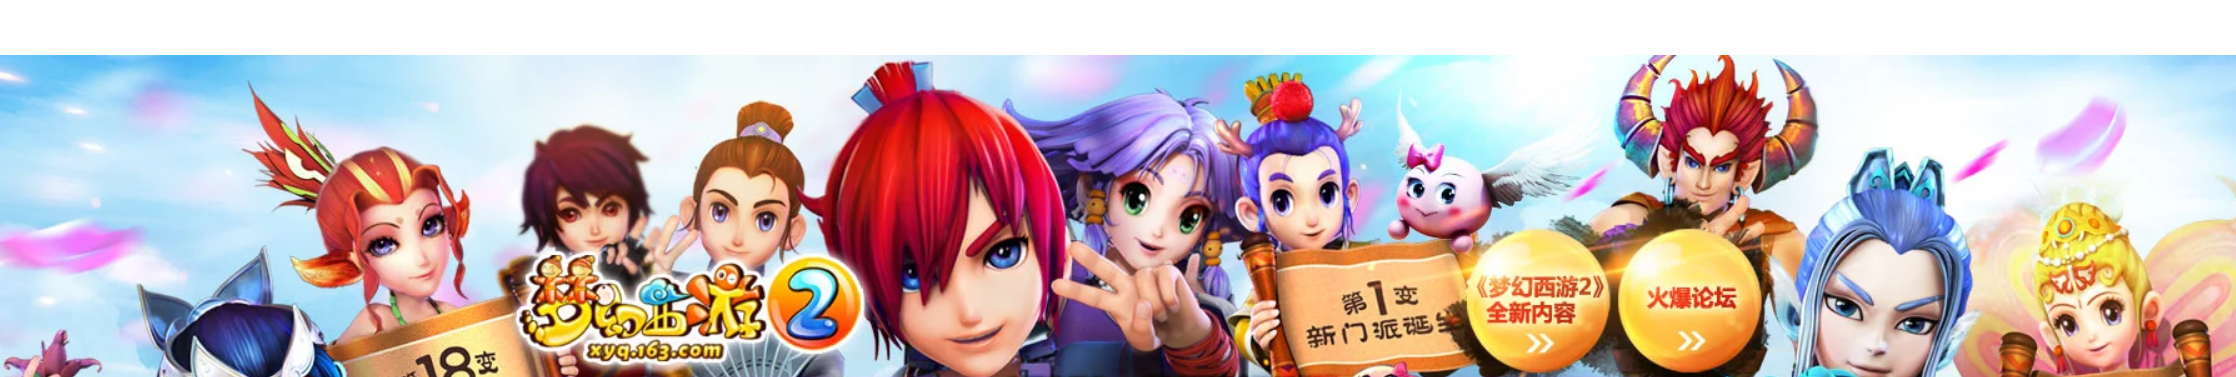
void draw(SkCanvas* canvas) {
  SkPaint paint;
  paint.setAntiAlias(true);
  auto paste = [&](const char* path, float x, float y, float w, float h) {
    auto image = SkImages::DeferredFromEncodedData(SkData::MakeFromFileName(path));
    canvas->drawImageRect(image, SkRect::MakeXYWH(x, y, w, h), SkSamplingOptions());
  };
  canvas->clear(0xffffffff);
  paste("img/1.png", 0, 55, 2236, 322);
}
